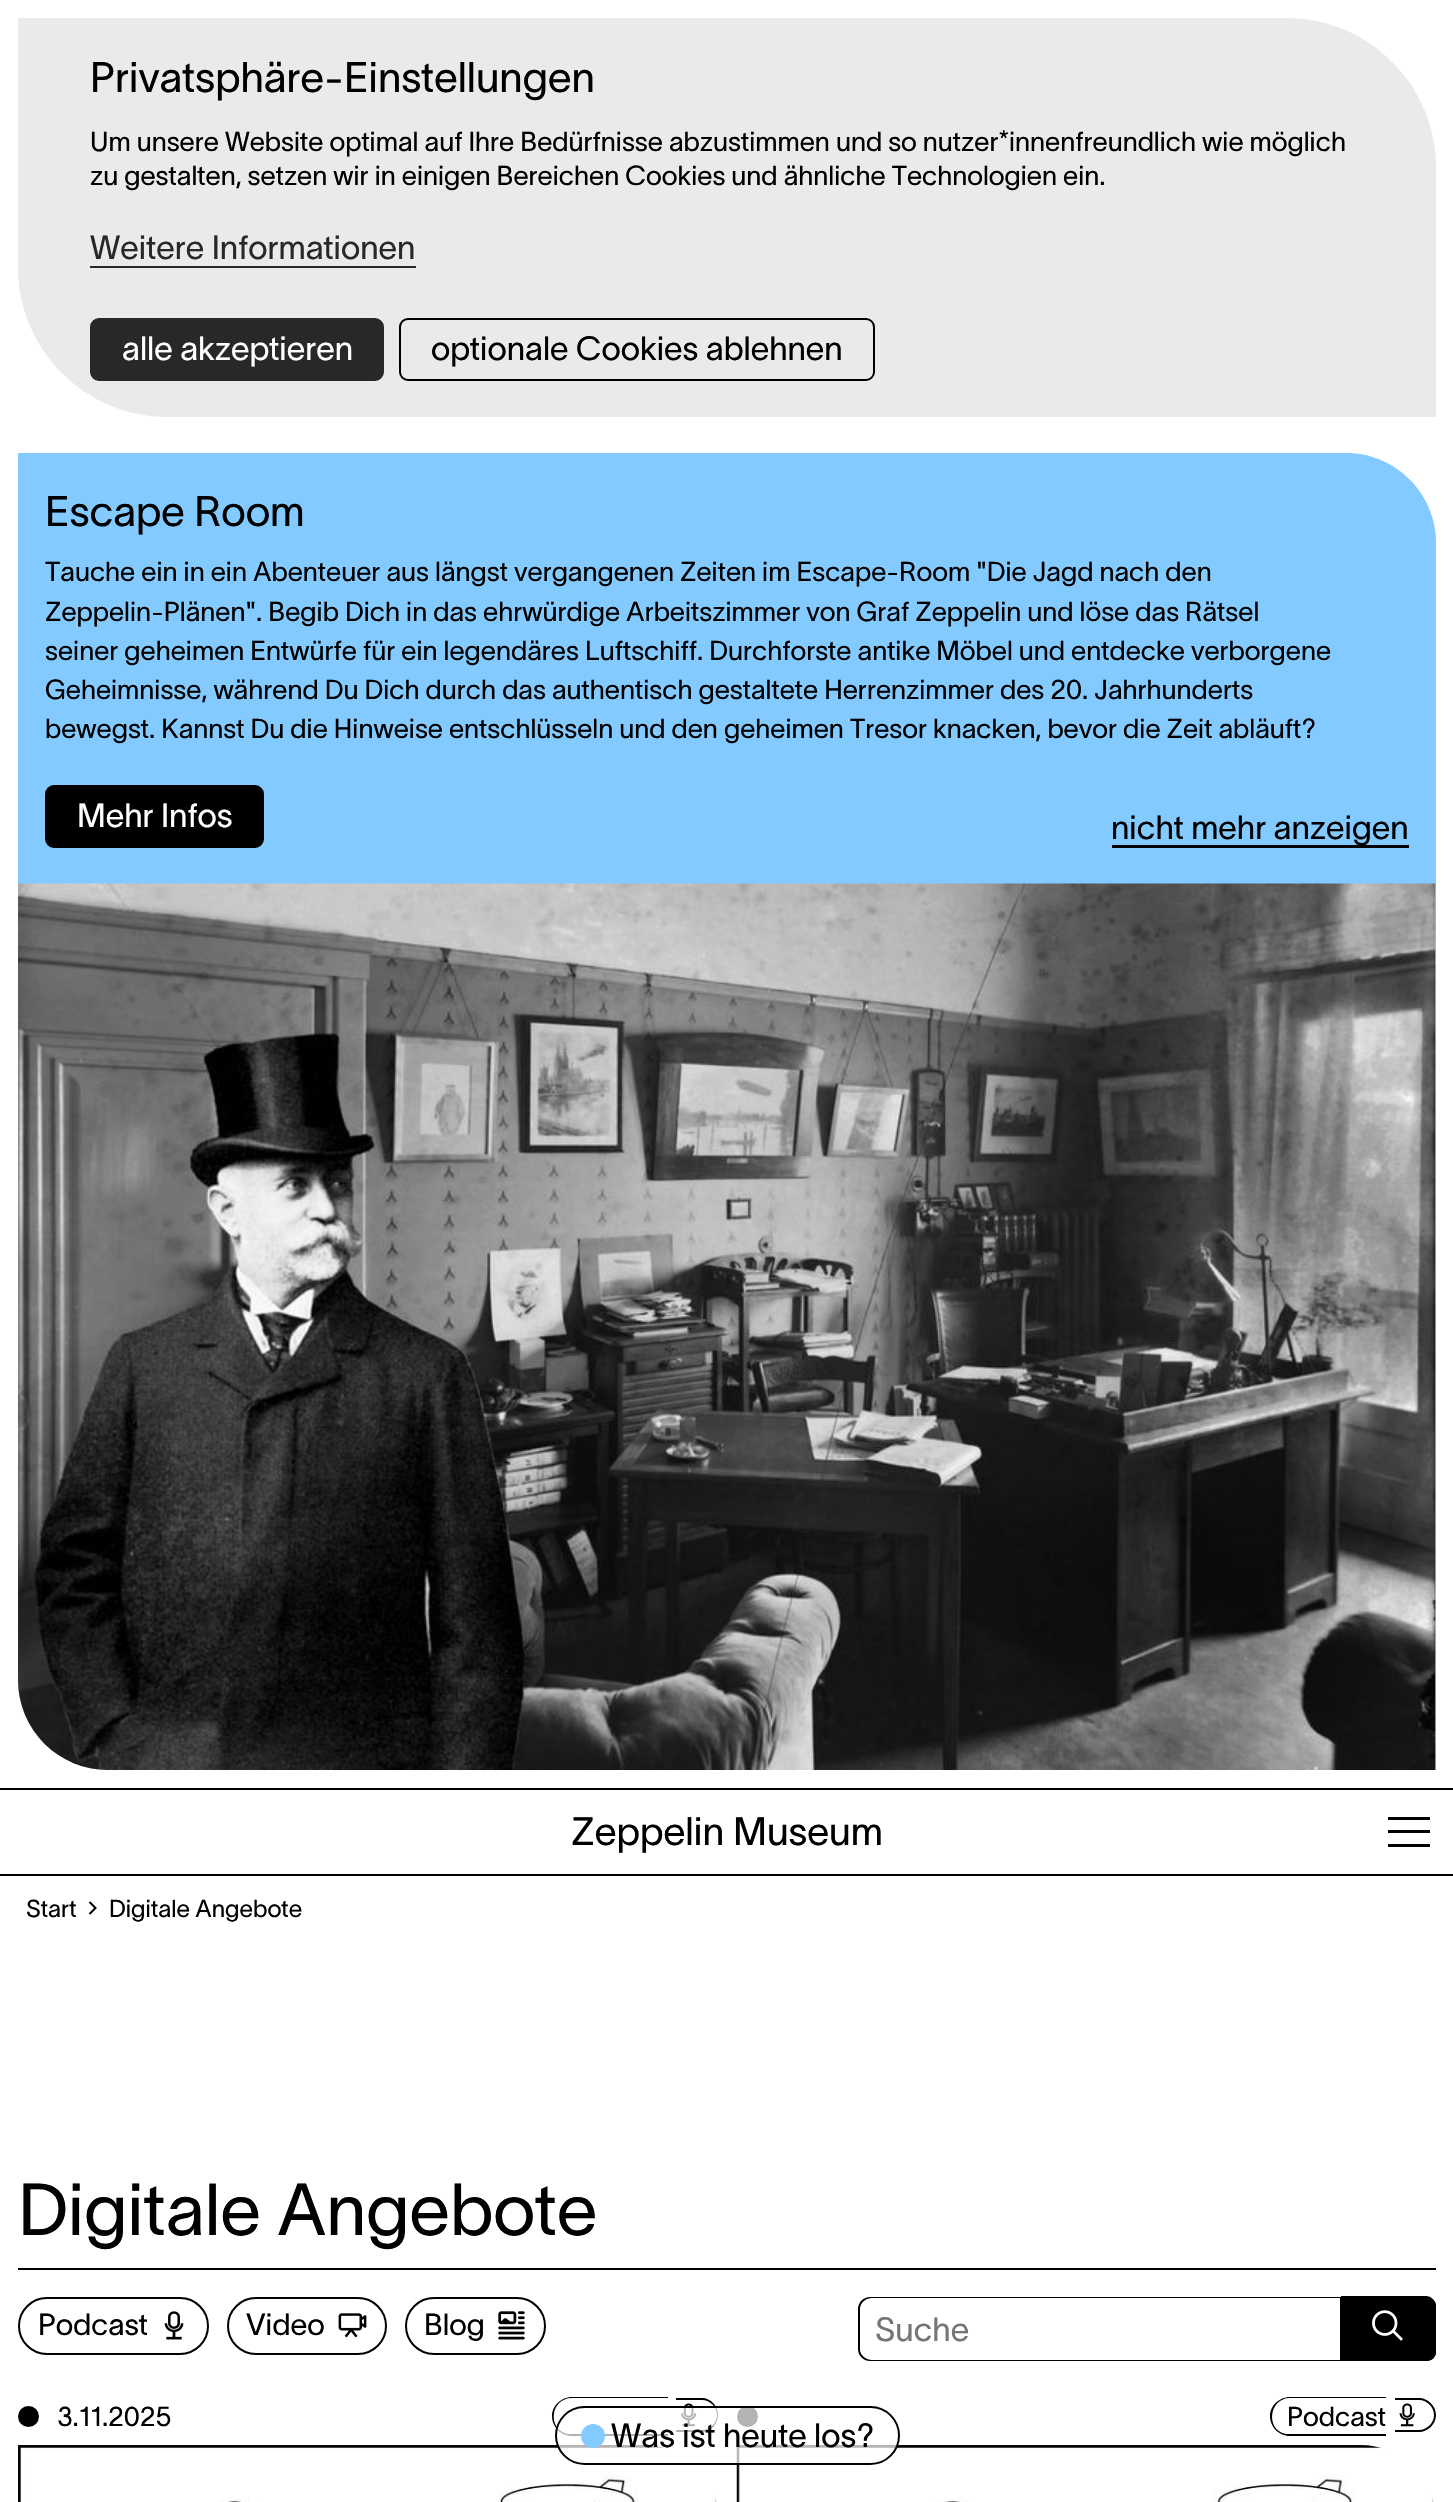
void draw(SkCanvas* canvas) {
  SkPaint paint;
  paint.setAntiAlias(true);
  auto face = [&](const char* family, int weight, float size, bool italic = false) {
    SkFontStyle style(weight, SkFontStyle::kNormal_Width,
      italic ? SkFontStyle::kItalic_Slant : SkFontStyle::kUpright_Slant);
    SkFont result(fontMgr->matchFamilyStyle(family, style), size);
    result.setSubpixel(true);
    return result;
  };
  auto paste = [&](const char* path, float x, float y, float w, float h) {
    auto image = SkImages::DeferredFromEncodedData(SkData::MakeFromFileName(path));
    canvas->drawImageRect(image, SkRect::MakeXYWH(x, y, w, h), SkSamplingOptions());
  };
  auto shape = [&](const char* data, bool evenOdd = false) {
    SkPath result = *SkParsePath::FromSVGString(data);
    if (evenOdd) result.setFillType(SkPathFillType::kEvenOdd);
    return result;
  };
  canvas->clear(0xffffffff);
  paint.setColor(0xffeaeaea);
  canvas->drawPath(shape("M18 18H1286C1369 18 1436 85 1436 168V417H168C85 417 18 350 18 267Z"), paint);
  paint.setColor(0xff282828);
  canvas->drawRect(SkRect::MakeXYWH(90, 266, 326, 2), paint);
  canvas->drawRoundRect(SkRect::MakeXYWH(91, 319, 292, 61), 8, 8, paint);
  paint.setStroke(true);
  paint.setStrokeWidth(2);
  canvas->drawRoundRect(SkRect::MakeXYWH(91, 319, 292, 61), 8, 8, paint);
  paint.setColor(0xff000000);
  canvas->drawRoundRect(SkRect::MakeXYWH(400, 319, 474, 61), 8, 8, paint);
  paint.setStroke(false);
  paint.setColor(0xff82caff);
  canvas->drawPath(shape("M18 453H1346C1395.5 453 1436 493.5 1436 543V1770H108C58.5 1770 18 1729.5 18 1680Z"), paint);
  paint.setColor(0xff000000);
  canvas->drawRoundRect(SkRect::MakeXYWH(46, 786, 217, 61), 8, 8, paint);
  paint.setStroke(true);
  canvas->drawRoundRect(SkRect::MakeXYWH(46, 786, 217, 61), 8, 8, paint);
  paint.setStroke(false);
  canvas->drawRect(SkRect::MakeXYWH(1112, 845, 297, 3), paint);
  paste("img/1.png", 18, 883, 1418, 887);
  {
    const struct { float x, y, w, h; SkColor color; } items[] = {
      {0, 1788, 1453, 2, 0xff000000},
      {0, 1874, 1453, 2, 0xff000000},
      {1388, 1817, 42, 3, 0xff000000},
      {1388, 1830, 42, 3, 0xff000000},
      {1388, 1844, 42, 3, 0xff000000},
    };
    for (auto [x, y, w, h, color] : items) {
      paint.setColor(color);
      canvas->drawRect(SkRect::MakeXYWH(x, y, w, h), paint);
    }
  }
  paint.setStroke(true);
  canvas->drawPath(shape("M89.5 1902L95.5 1908L89.5 1914"), paint);
  paint.setStroke(false);
  canvas->drawRect(SkRect::MakeXYWH(18, 2268, 1418, 2), paint);
  paint.setStroke(true);
  canvas->drawRoundRect(SkRect::MakeXYWH(19, 2298, 189, 56), 28, 28, paint);
  paste("img/2.png", 164, 2311, 20, 29);
  canvas->drawRoundRect(SkRect::MakeXYWH(228, 2298, 158, 56), 28, 28, paint);
  paste("img/3.png", 338, 2313, 29, 25);
  canvas->drawRoundRect(SkRect::MakeXYWH(406, 2298, 139, 56), 28, 28, paint);
  paste("img/4.png", 498, 2311, 27, 29);
  canvas->drawPath(shape("M870 2298H1340V2360H870C864 2360 859 2355 859 2349V2309C859 2303 864 2298 870 2298Z"), paint);
  paint.setStroke(false);
  paint.setColor(0xffffffff);
  canvas->drawPath(shape("M872 2298H1340V2360H872C865.5 2360 860 2354.5 860 2348V2310C860 2303.5 865.5 2298 872 2298Z"), paint);
  paint.setColor(0xff000000);
  canvas->drawPath(shape("M1341 2297H1427C1432 2297 1436 2301 1436 2306V2352C1436 2357 1432 2361 1427 2361H1341Z"), paint);
  canvas->drawPath(shape("M1341 2296H1426C1431 2296 1436 2301 1436 2306V2352C1436 2357 1431 2361 1426 2361H1341ZM1341 2298H1426C1431 2298 1434 2301 1434 2306V2352C1434 2356 1431 2360 1426 2360H1341Z", true), paint);
  paste("img/5.png", 1372, 2310, 31, 31);
  canvas->drawCircle(28.5f, 2416.5f, 10.5f, paint);
  canvas->drawPath(shape("M572 2397H668V2436H572C561 2436 552 2427 552 2416C552 2406 561 2397 572 2397ZM572 2398H668V2434H568C547 2430 550 2398 572 2398Z", true), paint);
  canvas->drawPath(shape("M676 2398H702C711 2398 718 2406 718 2415C718 2424 711 2432 702 2432H676ZM676 2400H702C710 2400 717 2407 717 2415C717 2423 710 2430 702 2430H676Z", true), paint);
  paste("img/6.png", 681, 2403, 16, 24);
  paste("img/7.png", 18, 2445, 699, 57);
  canvas->drawCircle(747.5f, 2416.5f, 10.5f, paint);
  canvas->drawPath(shape("M1290 2397H1386V2436H1290C1279 2436 1270 2427 1270 2416C1270 2406 1279 2397 1290 2397ZM1290 2398H1386V2434H1286C1265 2430 1269 2398 1290 2398Z", true), paint);
  canvas->drawPath(shape("M1395 2398H1419C1428 2398 1436 2406 1436 2415C1436 2424 1428 2432 1419 2432H1395ZM1395 2400H1419C1427 2400 1434 2407 1434 2415C1434 2423 1427 2430 1419 2430H1395Z", true), paint);
  paste("img/8.png", 1399, 2403, 16, 24);
  paste("img/9.png", 736, 2445, 698, 57);
  paint.setColor(0xb3ffffff);
  canvas->drawRoundRect(SkRect::MakeXYWH(556, 2407, 343, 57), 28.5f, 28.5f, paint);
  paint.setStroke(true);
  paint.setColor(0xff000000);
  canvas->drawRoundRect(SkRect::MakeXYWH(556, 2407, 343, 57), 28.5f, 28.5f, paint);
  paint.setStroke(false);
  paint.setColor(0xff82caff);
  canvas->drawCircle(593, 2436, 12, paint);
  auto f0 = face("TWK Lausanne", 300, 42);
  paint.setColor(0xff000000);
  canvas->drawString("Privatsphäre-Einstellungen", 90, 92, f0, paint);
  auto f1 = face("TWK Lausanne", 300, 27);
  canvas->drawString("Um unsere Website optimal auf Ihre Bedürfnisse abzustimmen und so nutzer*innenfreundlich wie möglich", 90, 151, f1, paint);
  canvas->drawString("zu gestalten, setzen wir in einigen Bereichen Cookies und ähnliche Technologien ein.", 90, 185, f1, paint);
  auto f2 = face("TWK Lausanne", 300, 33);
  paint.setColor(0xff282828);
  canvas->drawString("Weitere Informationen", 90, 259, f2, paint);
  paint.setColor(0xffffffff);
  canvas->drawString("alle akzeptieren", 122, 360, f2, paint);
  paint.setColor(0xff000000);
  canvas->drawString("optionale Cookies ablehnen", 431, 360, f2, paint);
  canvas->drawString("Escape Room", 45, 526, f0, paint);
  {
    const struct { const char* s; float x, y; } items[] = {
      {"Tauche ein in ein Abenteuer aus längst vergangenen Zeiten im Escape-Room \"Die Jagd nach den", 45, 581},
      {"Zeppelin-Plänen\". Begib Dich in das ehrwürdige Arbeitszimmer von Graf Zeppelin und löse das Rätsel", 45, 621},
      {"seiner geheimen Entwürfe für ein legendäres Luftschiff. Durchforste antike Möbel und entdecke verborgene", 45, 660},
      {"Geheimnisse, während Du Dich durch das authentisch gestaltete Herrenzimmer des 20. Jahrhunderts", 45, 699},
      {"bewegst. Kannst Du die Hinweise entschlüsseln und den geheimen Tresor knacken, bevor die Zeit abläuft?", 45, 738},
    };
    for (auto [s, x, y] : items) {
      canvas->drawString(s, x, y, f1, paint);
    }
  }
  paint.setColor(0xffffffff);
  canvas->drawString("Mehr Infos", 77, 827, f2, paint);
  paint.setColor(0xff000000);
  canvas->drawString("nicht mehr anzeigen", 1111, 839, f2, paint);
  auto f3 = face("TWK Lausanne", 300, 39);
  canvas->drawString("Zeppelin Museum", 571, 1845, f3, paint);
  auto f4 = face("TWK Lausanne", 300, 24);
  canvas->drawString("Start", 26, 1917, f4, paint);
  canvas->drawString("Digitale Angebote", 109, 1917, f4, paint);
  auto f5 = face("TWK Lausanne", 300, 72);
  canvas->drawString("Digitale Angebote", 18, 2235, f5, paint);
  auto f6 = face("TWK Lausanne", 300, 30);
  {
    const struct { const char* s; float x, y; } items[] = {
      {"Podcast", 38, 2335},
      {"Video", 246, 2335},
      {"Blog", 424, 2335},
    };
    for (auto [s, x, y] : items) {
      canvas->drawString(s, x, y, f6, paint);
    }
  }
  paint.setColor(0xff757575);
  canvas->drawString("Suche", 875, 2341, f2, paint);
  paint.setColor(0xff000000);
  canvas->drawString("3.11.2025", 57, 2426, f1, paint);
  canvas->drawString("Podcast", 1287, 2426, f1, paint);
  canvas->drawString("Was ist heute los?", 611, 2447, f2, paint);
}
